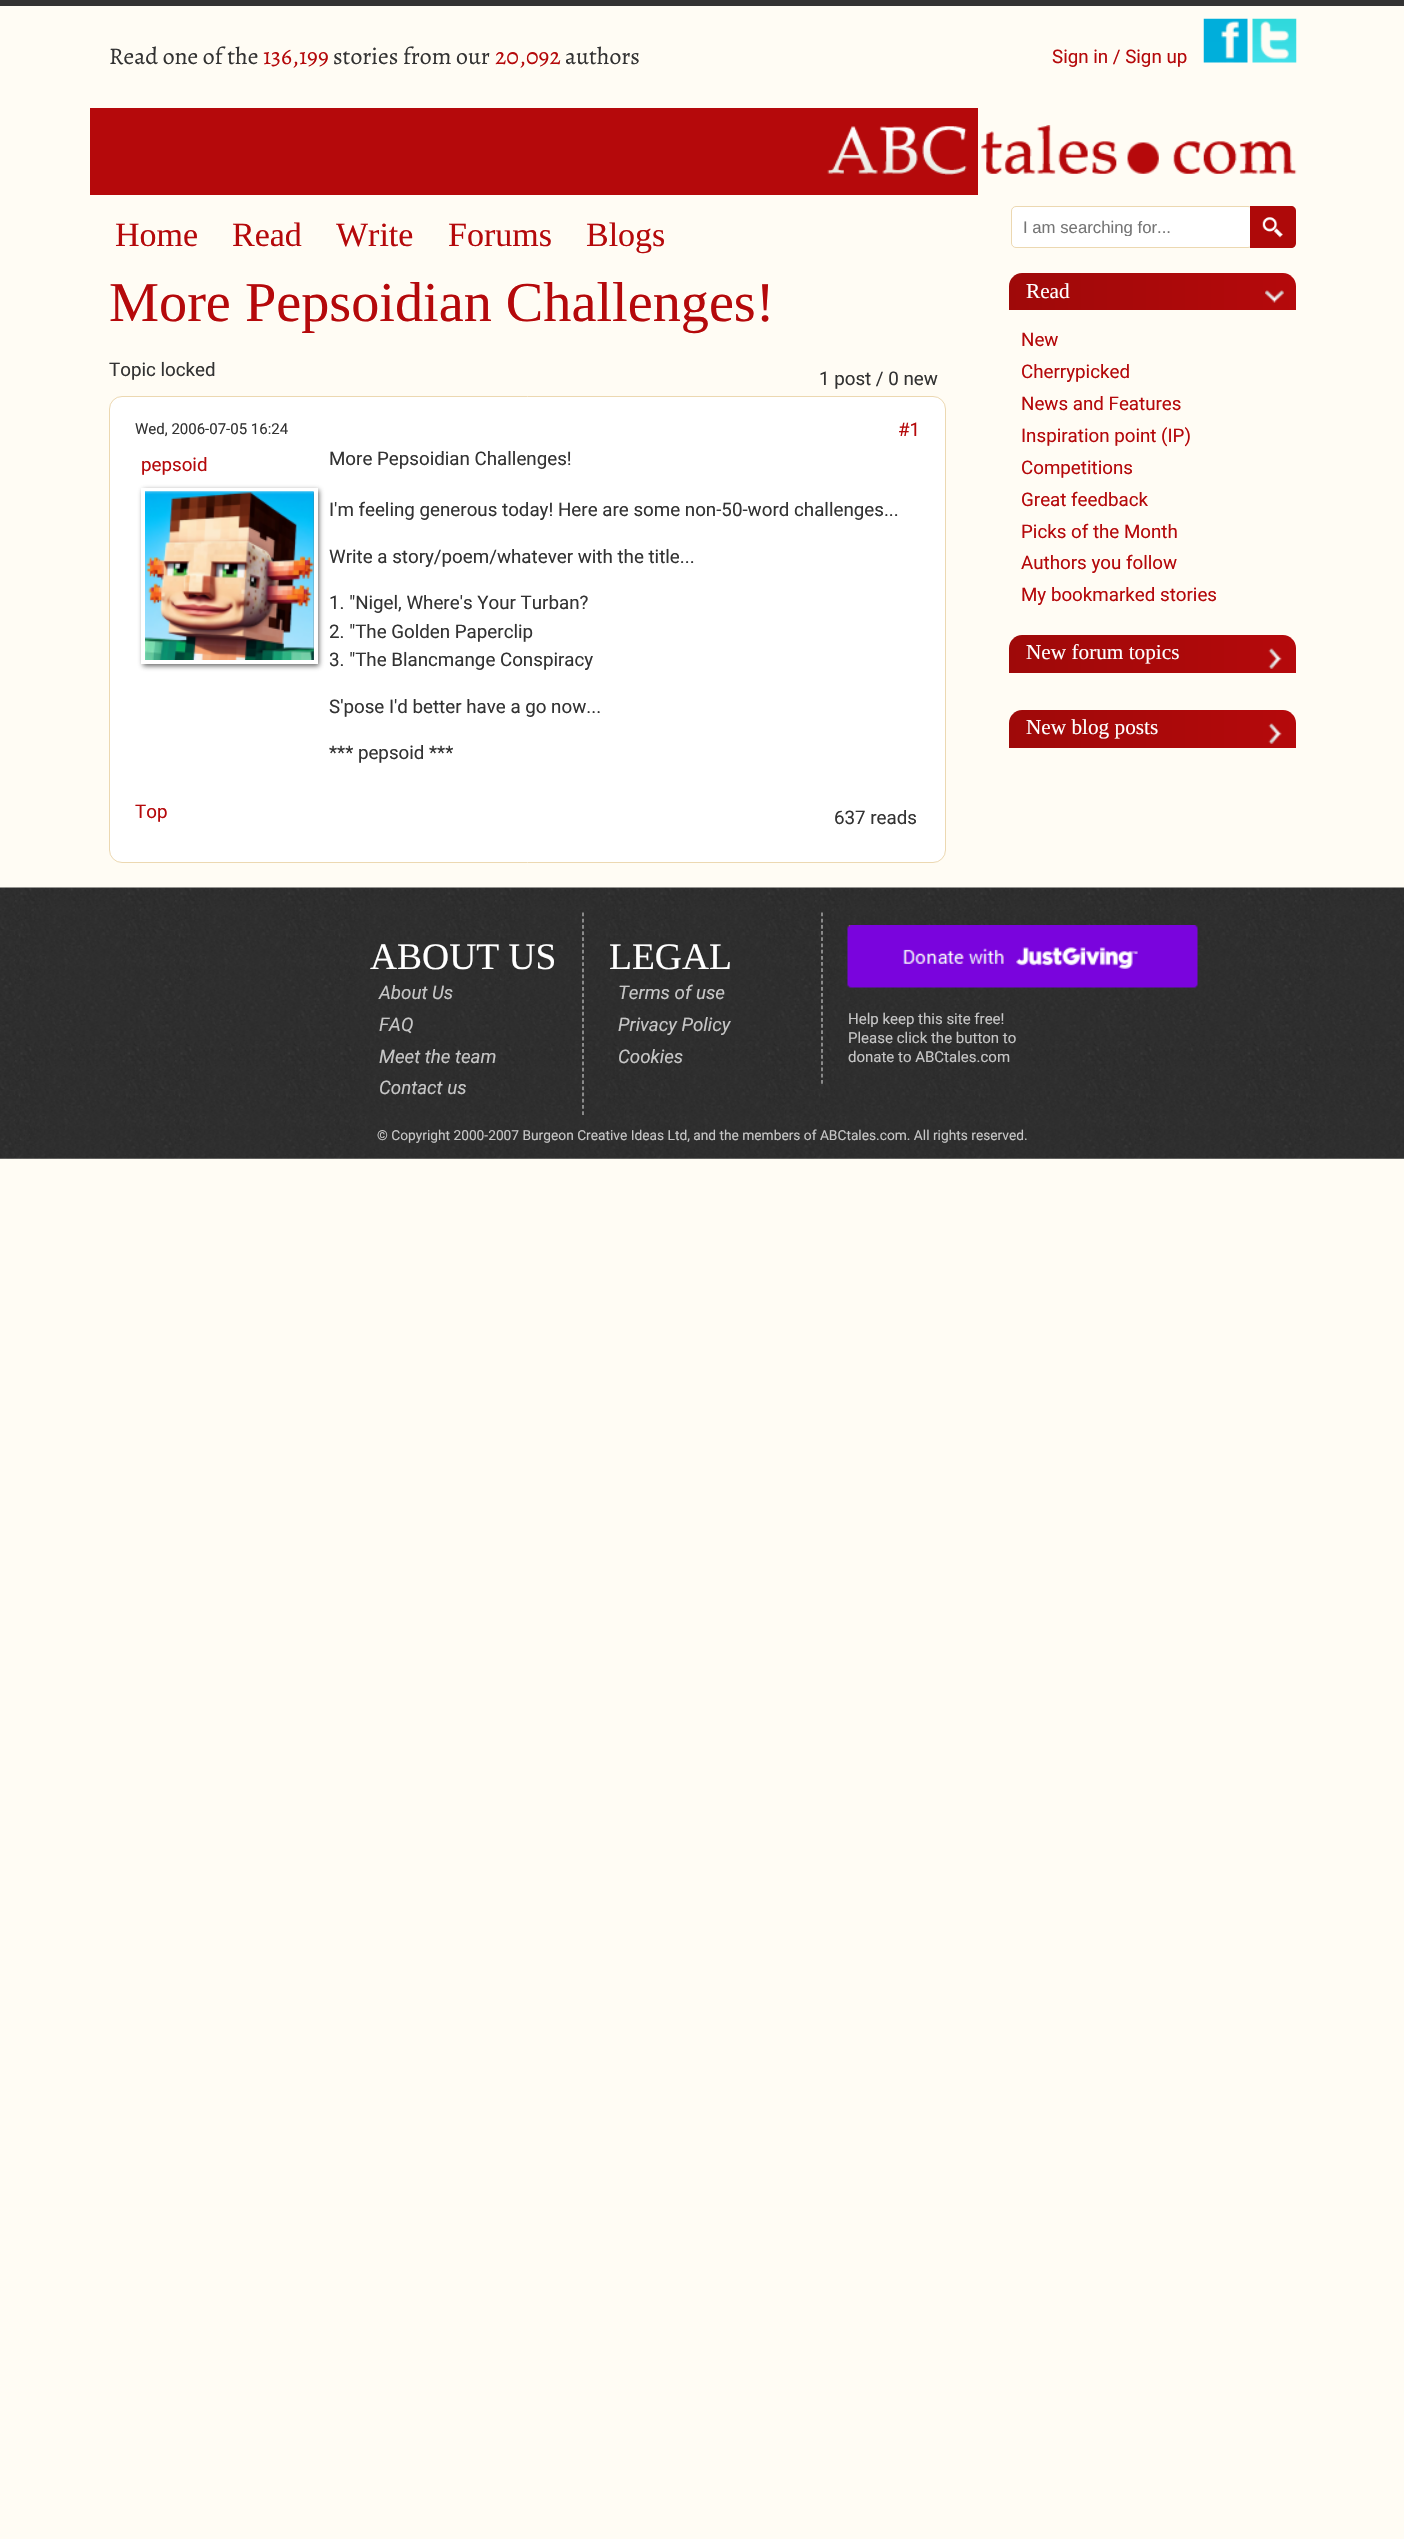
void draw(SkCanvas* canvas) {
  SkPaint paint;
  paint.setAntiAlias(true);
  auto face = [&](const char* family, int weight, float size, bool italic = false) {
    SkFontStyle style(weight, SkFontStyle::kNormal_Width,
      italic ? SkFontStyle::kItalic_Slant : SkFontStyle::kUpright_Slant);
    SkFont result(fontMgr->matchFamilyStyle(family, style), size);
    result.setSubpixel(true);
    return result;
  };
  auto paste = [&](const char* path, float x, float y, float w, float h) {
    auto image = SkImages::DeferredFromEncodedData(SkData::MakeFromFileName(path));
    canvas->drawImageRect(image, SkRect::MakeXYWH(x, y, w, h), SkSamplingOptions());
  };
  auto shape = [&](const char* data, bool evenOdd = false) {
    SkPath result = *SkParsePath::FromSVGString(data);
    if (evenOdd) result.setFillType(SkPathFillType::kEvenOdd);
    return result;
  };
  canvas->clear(0xfffffcf4);
  paint.setColor(0xff333333);
  canvas->drawRect(SkRect::MakeXYWH(0, 0, 1404, 6), paint);
  paste("img/1.png", 1203, 18, 45, 45);
  paste("img/2.png", 1252, 18, 45, 45);
  paint.setColor(0xffb5090b);
  canvas->drawRect(SkRect::MakeXYWH(90, 108, 888, 87), paint);
  paste("img/3.png", 827, 125, 470, 50);
  paint.setColor(0xffffffff);
  canvas->drawRoundRect(SkRect::MakeXYWH(109.5f, 396.5f, 836, 466), 12.5f, 12.5f, paint);
  paint.setStroke(true);
  paint.setStrokeWidth(1);
  paint.setColor(0xffecd8b1);
  canvas->drawRoundRect(SkRect::MakeXYWH(109.5f, 396.5f, 836, 466), 12.5f, 12.5f, paint);
  paint.setStroke(false);
  paint.setColor(0xbf323232);
  paint.setMaskFilter(SkMaskFilter::MakeBlur(kNormal_SkBlurStyle, 2.5f));
  canvas->drawRect(SkRect::MakeXYWH(143, 490, 176, 176), paint);
  paint.setMaskFilter(nullptr);
  paint.setStroke(true);
  paint.setStrokeWidth(4);
  paint.setColor(0xffffffff);
  canvas->drawRect(SkRect::MakeXYWH(143, 490, 173, 172), paint);
  paste("img/4.png", 145, 491, 169, 169);
  paint.setStroke(false);
  canvas->drawRoundRect(SkRect::MakeXYWH(1011.5f, 206.5f, 241, 41), 4.5f, 4.5f, paint);
  paint.setStroke(true);
  paint.setStrokeWidth(1);
  paint.setColor(0xffecd8b1);
  canvas->drawRoundRect(SkRect::MakeXYWH(1011.5f, 206.5f, 241, 41), 4.5f, 4.5f, paint);
  paint.setStroke(false);
  paint.setColor(0xffae0909);
  canvas->drawPath(shape("M1250 206H1291C1294 206 1296 208 1296 211V243C1296 246 1294 248 1291 248H1250Z"), paint);
  paste("img/5.png", 1262, 217, 21, 21);
  {
    const SkColor colors[] = {0xff9f0909, 0xffb5090b};
    const float stops[] = {0, 1};
    const SkPoint ends[] = {{1009, 291}, {1296, 291}};
    paint.setShader(SkGradientShader::MakeLinear(ends, colors, stops, 2, SkTileMode::kClamp));
    paint.setAlpha(255);
  }
  canvas->drawPath(shape("M1022 273H1283C1290 273 1296 279 1296 286V310H1009V286C1009 279 1015 273 1022 273Z"), paint);
  paste("img/6.png", 1265, 290, 19, 13);
  {
    const SkColor colors[] = {0xff9f0909, 0xffb5090b};
    const float stops[] = {0, 1};
    const SkPoint ends[] = {{1009, 654}, {1296, 654}};
    paint.setShader(SkGradientShader::MakeLinear(ends, colors, stops, 2, SkTileMode::kClamp));
    paint.setAlpha(255);
  }
  canvas->drawPath(shape("M1022 635H1283C1290 635 1296 641 1296 648V673H1009V648C1009 641 1015 635 1022 635Z"), paint);
  paste("img/7.png", 1268, 648, 14, 21);
  {
    const SkColor colors[] = {0xff9f0909, 0xffb5090b};
    const float stops[] = {0, 1};
    const SkPoint ends[] = {{1009, 729}, {1296, 729}};
    paint.setShader(SkGradientShader::MakeLinear(ends, colors, stops, 2, SkTileMode::kClamp));
    paint.setAlpha(255);
  }
  canvas->drawPath(shape("M1022 710H1283C1290 710 1296 716 1296 723V748H1009V723C1009 716 1015 710 1022 710Z"), paint);
  paste("img/7.png", 1268, 723, 14, 21);
  paste("img/8.png", 0, 887, 1404, 272);
  paint.setStroke(true);
  paint.setStrokeWidth(1.2f);
  paint.setShader(nullptr);
  paint.setColor(0xffc6c6c6);
  paint.setPathEffect(SkDashPathEffect::Make({{3.75f, 2.46f}}, 0));
  canvas->drawPath(shape("M583 912.5V1115"), paint);
  paint.setPathEffect(nullptr);
  paint.setPathEffect(SkDashPathEffect::Make({{3.75f, 2.45f}}, 0));
  canvas->drawPath(shape("M822 912.5V1084"), paint);
  paint.setPathEffect(nullptr);
  paste("img/9.png", 847, 925, 351, 63);
  auto f0 = face("Alegreya", 400, 23.75f);
  paint.setStroke(false);
  paint.setColor(0xff333333);
  canvas->drawString("Read one of the", 109, 64, f0, paint);
  paint.setColor(0xffb5090b);
  canvas->drawString("136,199", 263, 64, f0, paint);
  paint.setColor(0xff333333);
  canvas->drawString("stories from our", 333, 64, f0, paint);
  paint.setColor(0xffb5090b);
  canvas->drawString("20,092", 495, 64, f0, paint);
  paint.setColor(0xff333333);
  canvas->drawString("authors", 565, 64, f0, paint);
  auto f1 = face("Roboto", 400, 18.75f);
  paint.setColor(0xffb5090b);
  canvas->drawString("Sign in / Sign up", 1052, 63, f1, paint);
  auto f2 = face("Liberation Serif", 400, 34);
  {
    const struct { const char* s; float x, y; } items[] = {
      {"Home", 115, 246},
      {"Read", 232, 246},
      {"Write", 336, 246},
      {"Forums", 448, 246},
      {"Blogs", 586, 246},
    };
    for (auto [s, x, y] : items) {
      canvas->drawString(s, x, y, f2, paint);
    }
  }
  auto f3 = face("Liberation Serif", 400, 56.25f);
  canvas->drawString("More Pepsoidian Challenges!", 109, 321, f3, paint);
  paint.setColor(0xff333333);
  canvas->drawString("Topic locked", 109, 376, f1, paint);
  canvas->drawString("1 post / 0 new", 819, 385, f1, paint);
  auto f4 = face("Roboto", 400, 15);
  canvas->drawString("Wed, 2006-07-05 16:24", 135, 434, f4, paint);
  paint.setColor(0xffb5090b);
  canvas->drawString("#1", 898, 436, f1, paint);
  canvas->drawString("pepsoid", 141, 471, f1, paint);
  paint.setColor(0xff333333);
  {
    const struct { const char* s; float x, y; } items[] = {
      {"More Pepsoidian Challenges!", 329, 465},
      {"I'm feeling generous today! Here are some non-50-word challenges...", 329, 516},
      {"Write a story/poem/whatever with the title...", 329, 563},
      {"1. \"Nigel, Where's Your Turban?", 329, 609},
      {"2. \"The Golden Paperclip", 329, 638},
      {"3. \"The Blancmange Conspiracy", 329, 666},
      {"S'pose I'd better have a go now...", 329, 713},
      {"*** pepsoid ***", 329, 759},
    };
    for (auto [s, x, y] : items) {
      canvas->drawString(s, x, y, f1, paint);
    }
  }
  paint.setColor(0xffb5090b);
  canvas->drawString("Top", 135, 818, f1, paint);
  paint.setColor(0xff333333);
  canvas->drawString("637 reads", 834, 824, f1, paint);
  canvas->save();
  canvas->clipRect(SkRect::MakeXYWH(1023, 218, 202, 18));
  auto f5 = face("Liberation Sans", 400, 16.75f);
  paint.setColor(0xff757575);
  canvas->drawString("I am searching for...", 1023, 233, f5, paint);
  canvas->restore();
  auto f6 = face("Liberation Serif", 400, 21.25f);
  paint.setColor(0xffffffff);
  canvas->drawString("Read", 1026, 298, f6, paint);
  paint.setColor(0xffb5090b);
  {
    const struct { const char* s; float x, y; } items[] = {
      {"New", 1021, 346},
      {"Cherrypicked", 1021, 378},
      {"News and Features", 1021, 410},
      {"Inspiration point (IP)", 1021, 442},
      {"Competitions", 1021, 474},
      {"Great feedback", 1021, 506},
      {"Picks of the Month", 1021, 538},
      {"Authors you follow", 1021, 569},
      {"My bookmarked stories", 1021, 601},
    };
    for (auto [s, x, y] : items) {
      canvas->drawString(s, x, y, f1, paint);
    }
  }
  paint.setColor(0xffffffff);
  canvas->drawString("New forum topics", 1026, 659, f6, paint);
  canvas->drawString("New blog posts", 1026, 734, f6, paint);
  auto f7 = face("Liberation Serif", 400, 37.5f);
  canvas->drawString("ABOUT US", 370, 969, f7, paint);
  auto f8 = face("Roboto", 400, 18.75f, true);
  paint.setColor(0xffc6c6c6);
  {
    const struct { const char* s; float x, y; } items[] = {
      {"About Us", 379, 999},
      {"FAQ", 379, 1031},
      {"Meet the team", 379, 1063},
      {"Contact us", 379, 1094},
    };
    for (auto [s, x, y] : items) {
      canvas->drawString(s, x, y, f8, paint);
    }
  }
  paint.setColor(0xffffffff);
  canvas->drawString("LEGAL", 609, 969, f7, paint);
  paint.setColor(0xffc6c6c6);
  {
    const struct { const char* s; float x, y; } items[] = {
      {"Terms of use", 618, 999},
      {"Privacy Policy", 618, 1031},
      {"Cookies", 618, 1063},
    };
    for (auto [s, x, y] : items) {
      canvas->drawString(s, x, y, f8, paint);
    }
  }
  {
    const struct { const char* s; float x, y; } items[] = {
      {"Help keep this site free!", 848, 1024},
      {"Please click the button to", 848, 1043},
      {"donate to ABCtales.com", 848, 1062},
    };
    for (auto [s, x, y] : items) {
      canvas->drawString(s, x, y, f4, paint);
    }
  }
  auto f9 = face("Roboto", 400, 13.75f);
  canvas->drawString("© Copyright 2000-2007 Burgeon Creative Ideas Ltd, and the members of ABCtales.com. All rights reserved.", 377, 1140, f9, paint);
}
